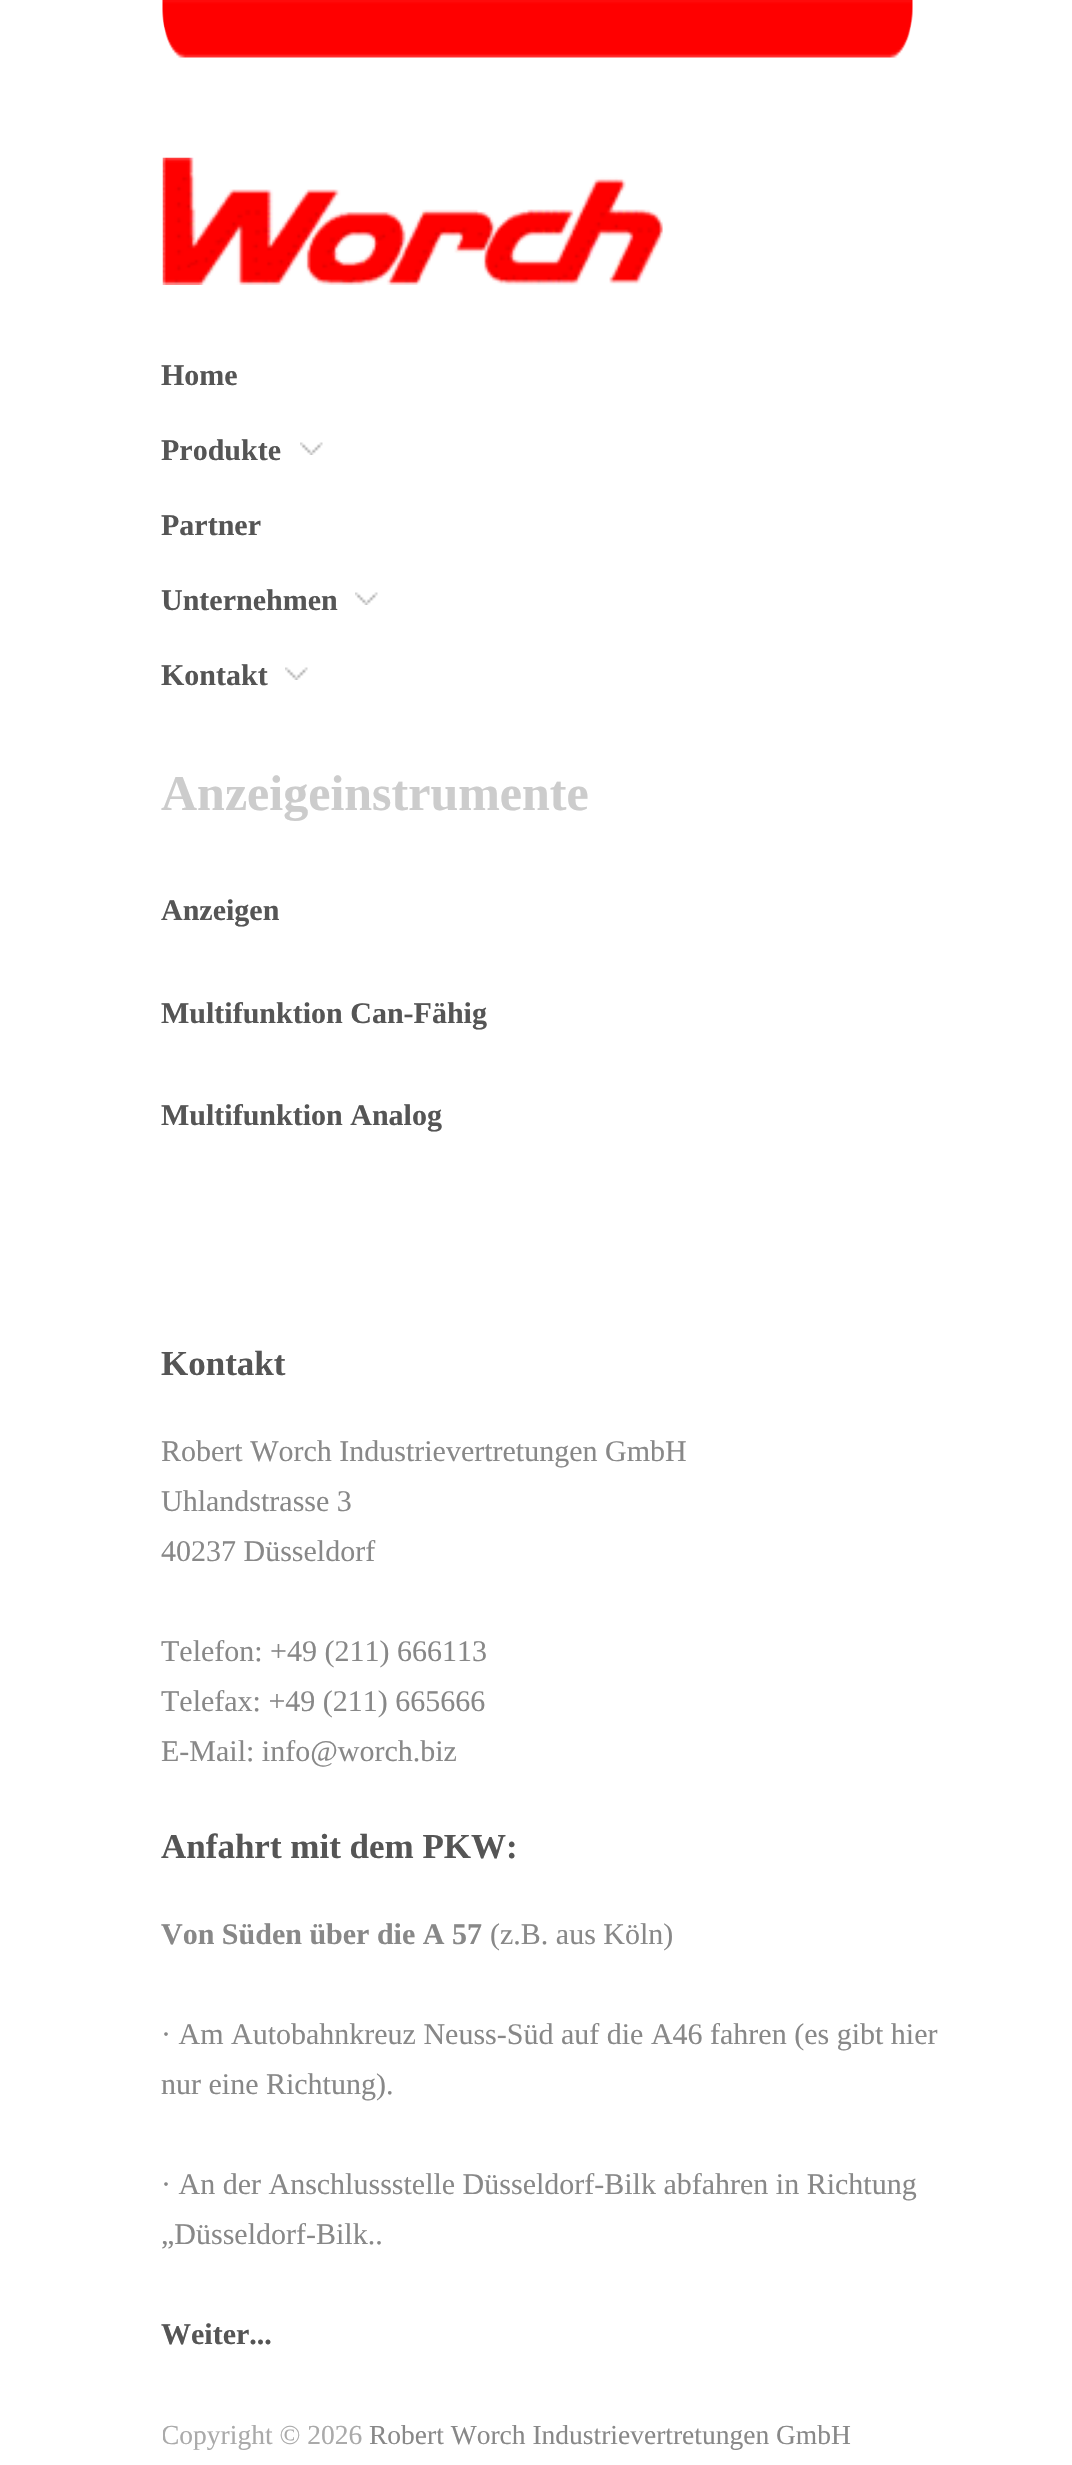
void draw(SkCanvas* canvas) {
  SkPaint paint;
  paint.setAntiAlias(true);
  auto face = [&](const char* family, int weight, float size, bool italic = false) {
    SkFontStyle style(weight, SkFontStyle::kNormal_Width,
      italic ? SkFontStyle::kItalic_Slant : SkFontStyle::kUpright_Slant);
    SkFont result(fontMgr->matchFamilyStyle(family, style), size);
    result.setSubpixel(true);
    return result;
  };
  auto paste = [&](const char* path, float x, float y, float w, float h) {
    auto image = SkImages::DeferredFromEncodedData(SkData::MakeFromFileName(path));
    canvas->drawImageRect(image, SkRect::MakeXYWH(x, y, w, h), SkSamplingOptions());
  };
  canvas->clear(0xffffffff);
  paste("img/1.png", 162, 0, 751, 58);
  paste("img/2.png", 162, 157, 501, 128);
  paste("img/3.png", 300, 442, 23, 13);
  paste("img/3.png", 355, 592, 23, 13);
  paste("img/4.png", 285, 667, 23, 13);
  auto f0 = face("Liberation Serif", 700, 30);
  paint.setColor(0xff555555);
  {
    const struct { const char* s; float x, y; } items[] = {
      {"Home", 161, 385},
      {"Produkte", 161, 460},
      {"Partner", 161, 535},
      {"Unternehmen", 161, 610},
      {"Kontakt", 161, 685},
    };
    for (auto [s, x, y] : items) {
      canvas->drawString(s, x, y, f0, paint);
    }
  }
  auto f1 = face("Liberation Serif", 700, 50);
  paint.setColor(0xffcccccc);
  canvas->drawString("Anzeigeinstrumente", 161, 810, f1, paint);
  paint.setColor(0xff555555);
  {
    const struct { const char* s; float x, y; } items[] = {
      {"Anzeigen", 161, 920},
      {"Multifunktion Can-Fähig", 161, 1023},
      {"Multifunktion Analog", 161, 1125},
    };
    for (auto [s, x, y] : items) {
      canvas->drawString(s, x, y, f0, paint);
    }
  }
  auto f2 = face("Liberation Serif", 700, 35);
  canvas->drawString("Kontakt", 161, 1375, f2, paint);
  auto f3 = face("Liberation Serif", 400, 30);
  paint.setColor(0xff888888);
  {
    const struct { const char* s; float x, y; } items[] = {
      {"Robert Worch Industrievertretungen GmbH", 161, 1461},
      {"Uhlandstrasse 3", 161, 1511},
      {"40237 Düsseldorf", 161, 1561},
      {"Telefon: +49 (211) 666113", 161, 1661},
      {"Telefax: +49 (211) 665666", 161, 1711},
      {"E-Mail: info@worch.biz", 161, 1761},
    };
    for (auto [s, x, y] : items) {
      canvas->drawString(s, x, y, f3, paint);
    }
  }
  paint.setColor(0xff555555);
  canvas->drawString("Anfahrt mit dem PKW:", 161, 1858, f2, paint);
  paint.setColor(0xff888888);
  canvas->drawString("Von Süden über die A 57", 161, 1944, f0, paint);
  {
    const struct { const char* s; float x, y; } items[] = {
      {"(z.B. aus Köln)", 490, 1944},
      {"· Am Autobahnkreuz Neuss-Süd auf die A46 fahren (es gibt hier", 161, 2044},
      {"nur eine Richtung).", 161, 2094},
      {"· An der Anschlussstelle Düsseldorf-Bilk abfahren in Richtung", 161, 2194},
      {"„Düsseldorf-Bilk..", 161, 2244},
    };
    for (auto [s, x, y] : items) {
      canvas->drawString(s, x, y, f3, paint);
    }
  }
  paint.setColor(0xff555555);
  canvas->drawString("Weiter...", 161, 2344, f0, paint);
  canvas->save();
  canvas->clipRect(SkRect::MakeXYWH(163, 2408, 750, 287));
  auto f4 = face("Liberation Serif", 400, 27.5f);
  paint.setColor(0xffaaaaaa);
  canvas->drawString("Copyright © 2026", 161, 2444, f4, paint);
  canvas->restore();
  paint.setColor(0xff888888);
  canvas->drawString("Robert Worch Industrievertretungen GmbH", 369, 2444, f4, paint);
}
